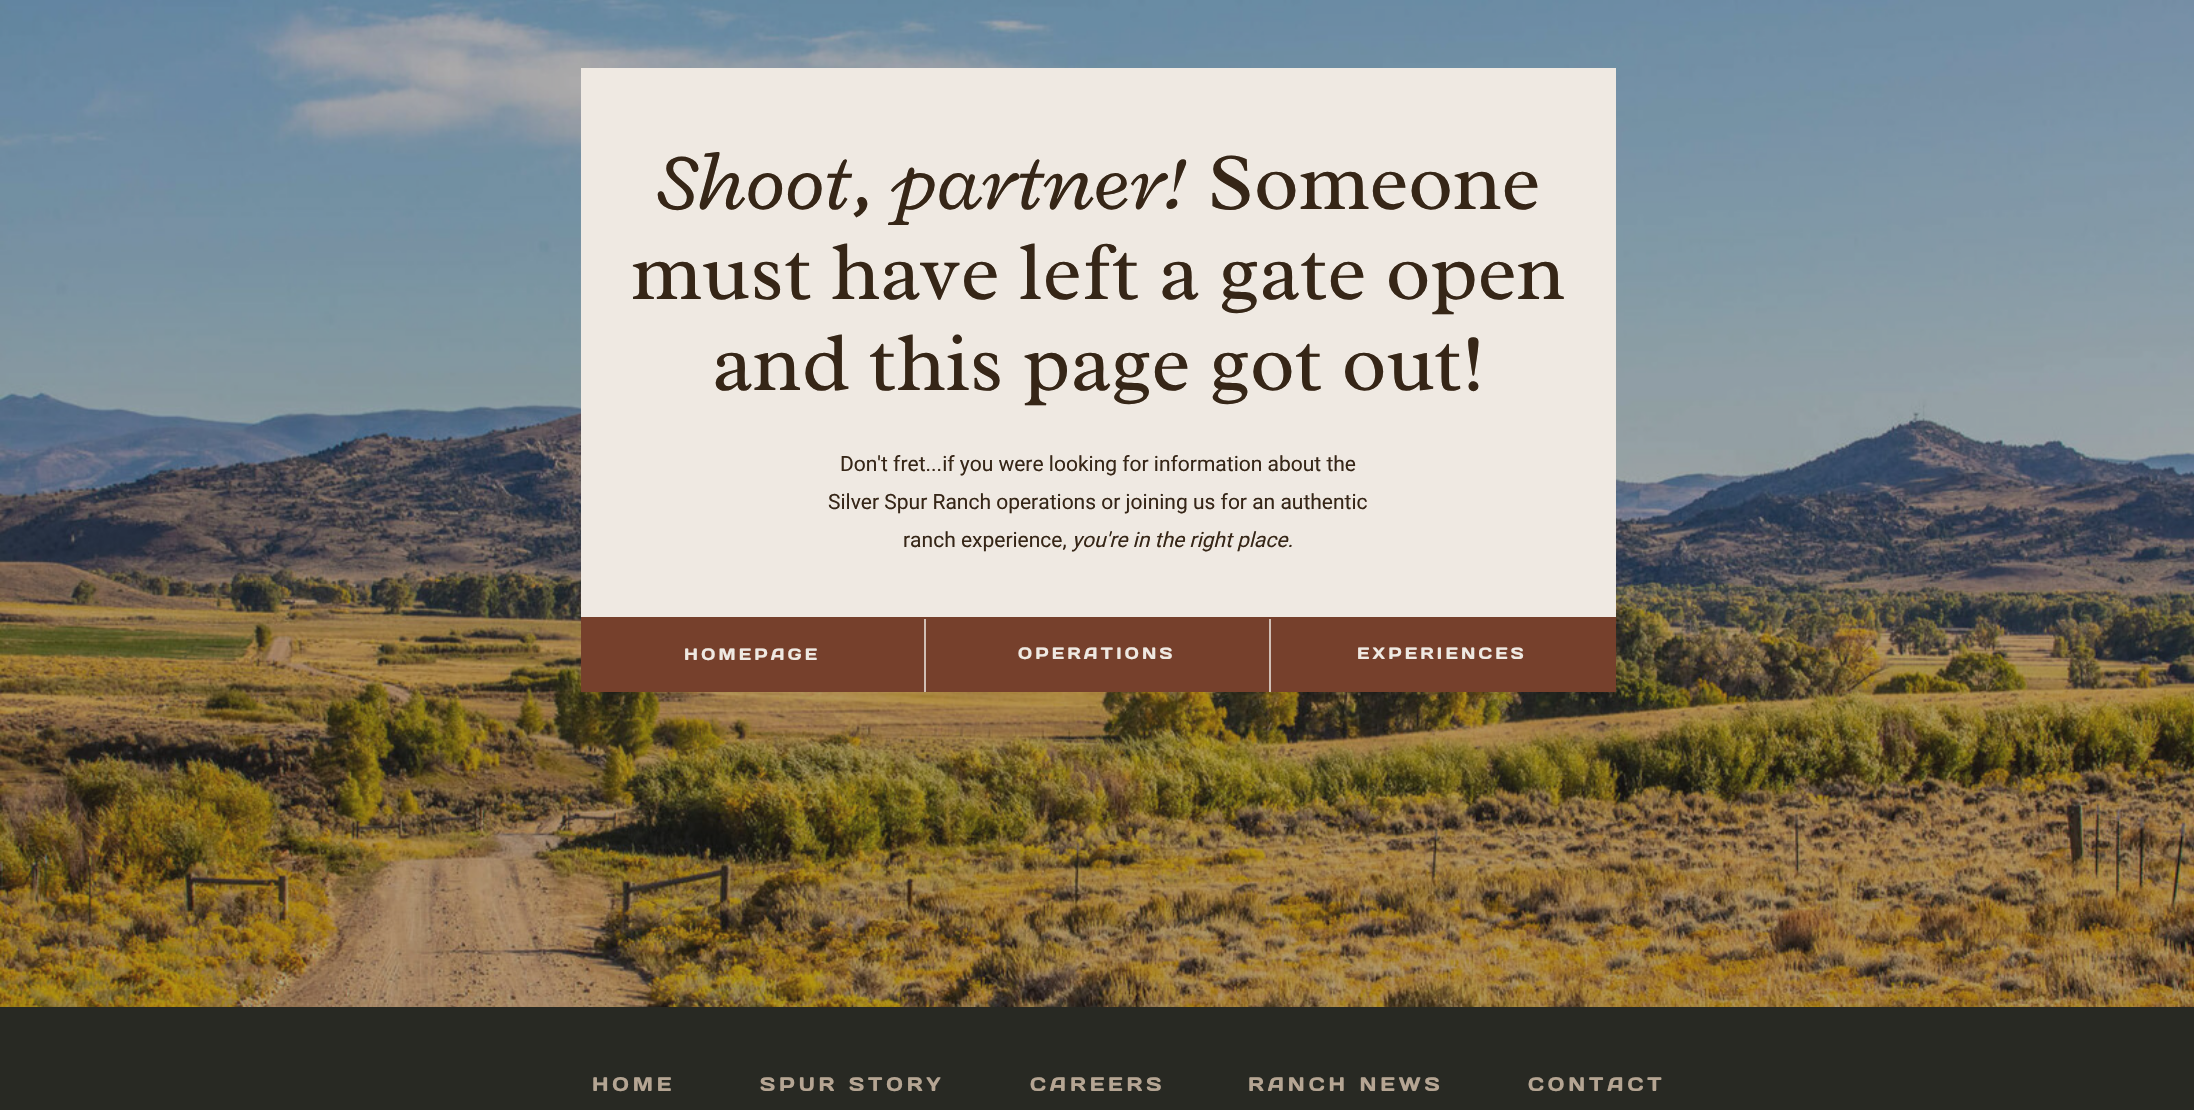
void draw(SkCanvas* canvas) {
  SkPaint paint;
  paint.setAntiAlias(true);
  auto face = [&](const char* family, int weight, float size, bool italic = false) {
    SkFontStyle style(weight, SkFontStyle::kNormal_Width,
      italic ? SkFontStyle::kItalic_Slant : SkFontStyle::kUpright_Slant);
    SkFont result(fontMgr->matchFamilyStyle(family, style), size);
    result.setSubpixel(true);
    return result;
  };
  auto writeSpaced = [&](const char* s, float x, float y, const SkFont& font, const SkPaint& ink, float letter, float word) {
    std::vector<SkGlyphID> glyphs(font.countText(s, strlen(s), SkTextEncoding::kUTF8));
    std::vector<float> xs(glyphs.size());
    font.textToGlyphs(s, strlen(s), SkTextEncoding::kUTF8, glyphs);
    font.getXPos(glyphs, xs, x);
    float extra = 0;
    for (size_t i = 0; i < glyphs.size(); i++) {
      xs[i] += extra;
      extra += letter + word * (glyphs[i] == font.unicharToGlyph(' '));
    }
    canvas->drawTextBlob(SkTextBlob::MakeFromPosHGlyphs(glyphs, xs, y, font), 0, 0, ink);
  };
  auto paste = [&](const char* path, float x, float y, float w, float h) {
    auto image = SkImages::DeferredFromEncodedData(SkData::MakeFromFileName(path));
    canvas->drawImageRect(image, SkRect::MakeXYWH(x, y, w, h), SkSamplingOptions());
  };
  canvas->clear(0xff282923);
  paste("img/1.png", 0, 0, 2194, 1007);
  {
    const struct { float x, y, w, h; SkColor color; } items[] = {
      {581, 68, 1035, 549, 0xffefe9e2},
      {581, 617, 1035, 75, 0xff76402c},
      {924, 619, 2, 73, 0xffd1bfb5},
      {1269, 619, 2, 73, 0xffd1bfb5},
    };
    for (auto [x, y, w, h, color] : items) {
      paint.setColor(color);
      canvas->drawRect(SkRect::MakeXYWH(x, y, w, h), paint);
    }
  }
  auto f0 = face("Radley", 400, 82.5f, true);
  paint.setColor(0xff362617);
  canvas->drawString("Shoot, partner!", 656, 209, f0, paint);
  auto f1 = face("Radley", 400, 82.5f);
  {
    const struct { const char* s; float x, y; } items[] = {
      {"Someone", 1207, 209},
      {"must have left a gate open", 631, 299},
      {"and this page got out!", 712, 390},
    };
    for (auto [s, x, y] : items) {
      canvas->drawString(s, x, y, f1, paint);
    }
  }
  auto f2 = face("Roboto", 400, 21);
  {
    const struct { const char* s; float x, y; } items[] = {
      {"Don't fret...if you were looking for information about the", 840, 471},
      {"Silver Spur Ranch operations or joining us for an authentic", 828, 509},
      {"ranch experience,", 903, 547},
    };
    for (auto [s, x, y] : items) {
      canvas->drawString(s, x, y, f2, paint);
    }
  }
  auto f3 = face("Roboto", 400, 21, true);
  canvas->drawString("you're in the right place.", 1072, 547, f3, paint);
  auto f4 = face("Days One", 400, 16.5f);
  paint.setColor(0xffefe9e2);
  {
    const struct { const char* s; float x, y; } items[] = {
      {"HOMEPAGE", 684, 660},
      {"OPERATIONS", 1018, 659},
      {"EXPERIENCES", 1357, 659},
    };
    for (auto [s, x, y] : items) {
      writeSpaced(s, x, y, f4, paint, 3.25f, 0);
    }
  }
  auto f5 = face("Days One", 400, 19.5f);
  paint.setColor(0xffb5a593);
  {
    const struct { const char* s; float x, y; } items[] = {
      {"HOME", 592, 1091},
      {"SPUR STORY", 760, 1091},
      {"CAREERS", 1030, 1091},
      {"RANCH NEWS", 1248, 1091},
      {"CONTACT", 1528, 1091},
    };
    for (auto [s, x, y] : items) {
      writeSpaced(s, x, y, f5, paint, 3.9f, 0);
    }
  }
}
